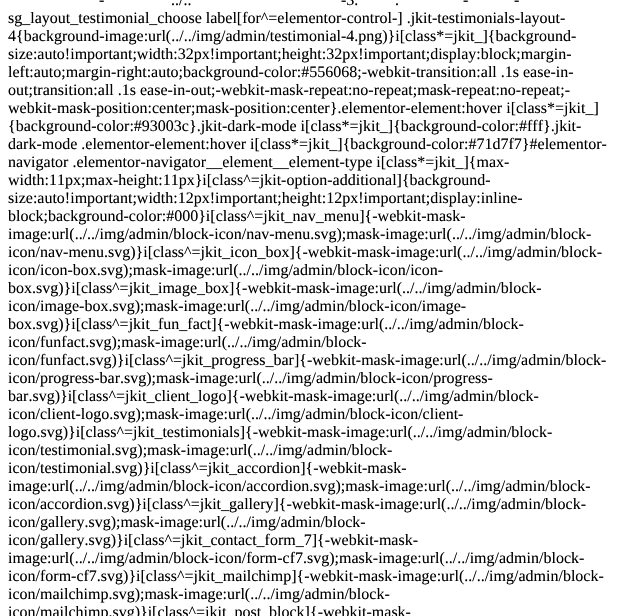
void draw(SkCanvas* canvas) {
  SkPaint paint;
  paint.setAntiAlias(true);
  auto face = [&](const char* family, int weight, float size, bool italic = false) {
    SkFontStyle style(weight, SkFontStyle::kNormal_Width,
      italic ? SkFontStyle::kItalic_Slant : SkFontStyle::kUpright_Slant);
    SkFont result(fontMgr->matchFamilyStyle(family, style), size);
    result.setSubpixel(true);
    return result;
  };
  canvas->clear(0xffffffff);
  auto f0 = face("Liberation Serif", 400, 16);
  paint.setColor(0xff000000);
  {
    const struct { const char* s; float x, y; } items[] = {
      {"-", 99, 5},
      {"../..", 171, 5},
      {"-3.", 341, 5},
      {"-", 463, 5},
      {"-", 514, 5},
      {".", 395, 5},
      {"sg_layout_testimonial_choose label[for^=elementor-control-] .jkit-testimonials-layout-", 8, 23},
      {"4{background-image:url(../../img/admin/testimonial-4.png)}i[class*=jkit_]{background-", 8, 41},
      {"size:auto!important;width:32px!important;height:32px!important;display:block;margin-", 8, 59},
      {"left:auto;margin-right:auto;background-color:#556068;-webkit-transition:all .1s ease-in-", 8, 77},
      {"out;transition:all .1s ease-in-out;-webkit-mask-repeat:no-repeat;mask-repeat:no-repeat;-", 8, 95},
      {"webkit-mask-position:center;mask-position:center}.elementor-element:hover i[class*=jkit_]", 8, 113},
      {"{background-color:#93003c}.jkit-dark-mode i[class*=jkit_]{background-color:#fff}.jkit-", 8, 131},
      {"dark-mode .elementor-element:hover i[class*=jkit_]{background-color:#71d7f7}#elementor-", 8, 149},
      {"navigator .elementor-navigator__element__element-type i[class*=jkit_]{max-", 8, 167},
      {"width:11px;max-height:11px}i[class^=jkit-option-additional]{background-", 8, 185},
      {"size:auto!important;width:12px!important;height:12px!important;display:inline-", 8, 203},
      {"block;background-color:#000}i[class^=jkit_nav_menu]{-webkit-mask-", 8, 221},
      {"image:url(../../img/admin/block-icon/nav-menu.svg);mask-image:url(../../img/admin/block-", 8, 239},
      {"icon/nav-menu.svg)}i[class^=jkit_icon_box]{-webkit-mask-image:url(../../img/admin/block-", 8, 257},
      {"icon/icon-box.svg);mask-image:url(../../img/admin/block-icon/icon-", 8, 275},
      {"box.svg)}i[class^=jkit_image_box]{-webkit-mask-image:url(../../img/admin/block-", 8, 293},
      {"icon/image-box.svg);mask-image:url(../../img/admin/block-icon/image-", 8, 311},
      {"box.svg)}i[class^=jkit_fun_fact]{-webkit-mask-image:url(../../img/admin/block-", 8, 329},
      {"icon/funfact.svg);mask-image:url(../../img/admin/block-", 8, 347},
      {"icon/funfact.svg)}i[class^=jkit_progress_bar]{-webkit-mask-image:url(../../img/admin/block-", 8, 365},
      {"icon/progress-bar.svg);mask-image:url(../../img/admin/block-icon/progress-", 8, 383},
      {"bar.svg)}i[class^=jkit_client_logo]{-webkit-mask-image:url(../../img/admin/block-", 8, 401},
      {"icon/client-logo.svg);mask-image:url(../../img/admin/block-icon/client-", 8, 419},
      {"logo.svg)}i[class^=jkit_testimonials]{-webkit-mask-image:url(../../img/admin/block-", 8, 437},
      {"icon/testimonial.svg);mask-image:url(../../img/admin/block-", 8, 455},
      {"icon/testimonial.svg)}i[class^=jkit_accordion]{-webkit-mask-", 8, 473},
      {"image:url(../../img/admin/block-icon/accordion.svg);mask-image:url(../../img/admin/block-", 8, 491},
      {"icon/accordion.svg)}i[class^=jkit_gallery]{-webkit-mask-image:url(../../img/admin/block-", 8, 509},
      {"icon/gallery.svg);mask-image:url(../../img/admin/block-", 8, 527},
      {"icon/gallery.svg)}i[class^=jkit_contact_form_7]{-webkit-mask-", 8, 545},
      {"image:url(../../img/admin/block-icon/form-cf7.svg);mask-image:url(../../img/admin/block-", 8, 563},
      {"icon/form-cf7.svg)}i[class^=jkit_mailchimp]{-webkit-mask-image:url(../../img/admin/block-", 8, 581},
      {"icon/mailchimp.svg);mask-image:url(../../img/admin/block-", 8, 599},
      {"icon/mailchimp.svg)}i[class^=jkit_post_block]{-webkit-mask-", 8, 617},
    };
    for (auto [s, x, y] : items) {
      canvas->drawString(s, x, y, f0, paint);
    }
  }
}
